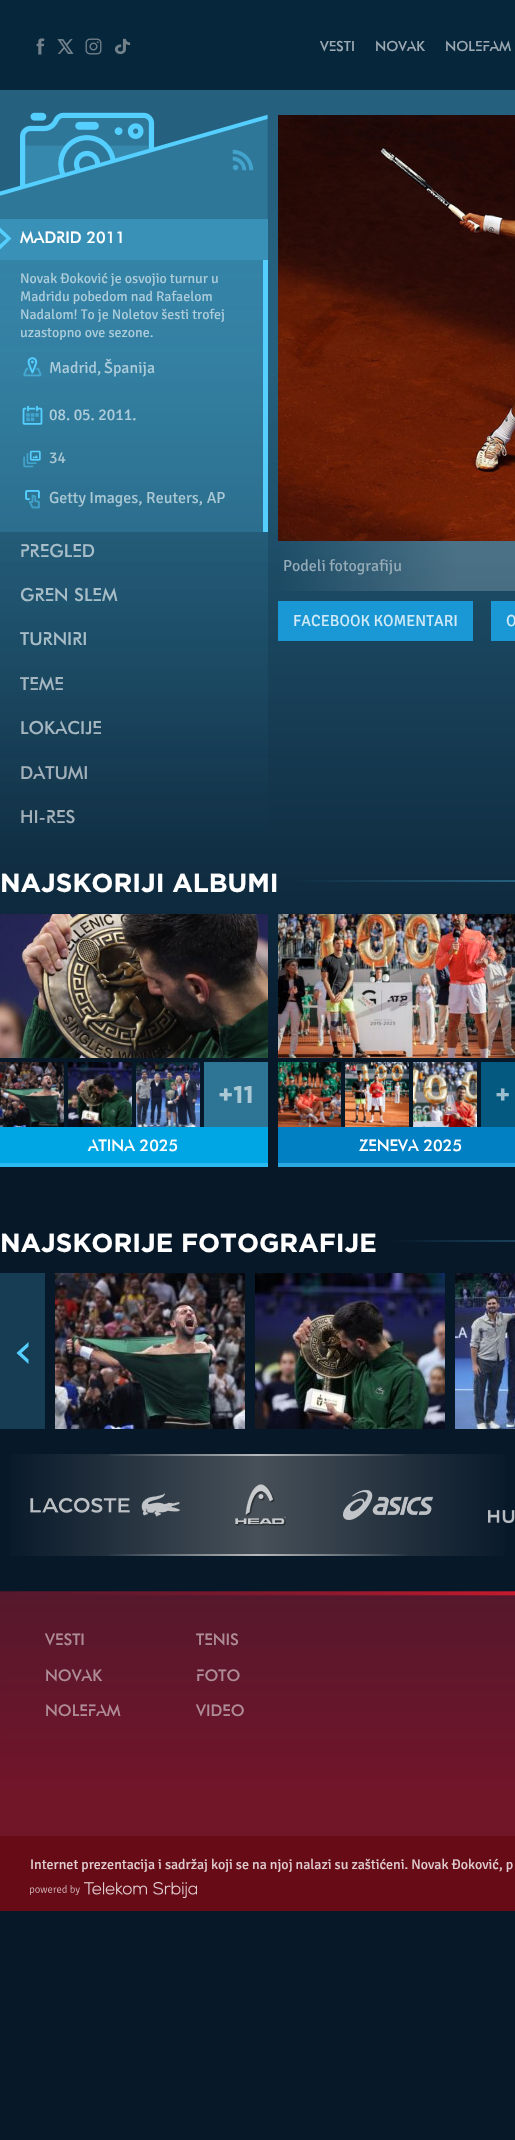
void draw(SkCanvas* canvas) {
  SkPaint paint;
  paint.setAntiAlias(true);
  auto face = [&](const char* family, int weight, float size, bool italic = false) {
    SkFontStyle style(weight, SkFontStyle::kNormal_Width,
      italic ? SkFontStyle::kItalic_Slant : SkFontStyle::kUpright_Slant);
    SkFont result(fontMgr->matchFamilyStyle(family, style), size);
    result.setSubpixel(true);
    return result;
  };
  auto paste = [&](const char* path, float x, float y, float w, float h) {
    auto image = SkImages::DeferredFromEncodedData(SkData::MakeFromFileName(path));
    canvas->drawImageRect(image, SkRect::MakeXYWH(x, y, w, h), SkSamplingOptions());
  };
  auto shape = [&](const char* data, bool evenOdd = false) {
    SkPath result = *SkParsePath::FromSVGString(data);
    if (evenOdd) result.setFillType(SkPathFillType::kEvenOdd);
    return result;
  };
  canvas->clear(0xff071829);
  paint.setColor(0xff06263c);
  canvas->drawRect(SkRect::MakeXYWH(0, 0, 515, 90), paint);
  paste("img/1.png", 36, 38, 9, 17);
  paste("img/2.png", 57, 39, 17, 15);
  paste("img/3.png", 85, 38, 17, 17);
  paste("img/4.png", 114, 38, 17, 17);
  paste("img/5.png", 0, 90, 515, 960);
  paste("img/6.png", 0, 112, 268, 107);
  paste("img/7.png", 232, 149, 22, 22);
  paint.setColor(0xff3991b7);
  canvas->drawRect(SkRect::MakeXYWH(0, 219, 268, 41), paint);
  paint.setColor(0xff54cfff);
  canvas->drawPath(shape("M11.5 238.5L-.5 227V232L6.5 238.5L-.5 245V250Z"), paint);
  {
    const struct { float x, y, w, h; SkColor color; } items[] = {
      {0, 260, 263, 82, 0x2654cfff},
      {263, 260, 5, 272, 0xff54cfff},
      {0, 342, 263, 190, 0x2654cfff},
    };
    for (auto [x, y, w, h, color] : items) {
      paint.setColor(color);
      canvas->drawRect(SkRect::MakeXYWH(x, y, w, h), paint);
    }
  }
  paste("img/8.png", 23, 357, 19, 20);
  paste("img/9.png", 22, 405, 21, 20);
  paste("img/10.png", 23, 450, 18, 18);
  paste("img/11.png", 25, 490, 15, 19);
  paste("img/12.png", 278, 115, 237, 426);
  paint.setColor(0xff1a98d6);
  canvas->drawRect(SkRect::MakeXYWH(278, 601, 195, 40), paint);
  canvas->drawRect(SkRect::MakeXYWH(491, 601, 24, 40), paint);
  {
    const SkColor colors[] = {0xff0f2c41, 0xff54cfff};
    const float stops[] = {0, 1};
    const SkPoint ends[] = {{289, 881}, {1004, 881}};
    paint.setShader(SkGradientShader::MakeLinear(ends, colors, stops, 2, SkTileMode::kClamp));
    paint.setAlpha(255);
  }
  canvas->drawRect(SkRect::MakeXYWH(298, 880, 217, 2), paint);
  paste("img/13.png", 0, 914, 268, 144);
  paste("img/14.png", 0, 1062, 64, 65);
  paste("img/15.png", 68, 1062, 64, 65);
  paste("img/16.png", 136, 1062, 64, 65);
  paint.setShader(nullptr);
  {
    const struct { float x, y, w, h; SkColor color; } items[] = {
      {204, 1062, 64, 65, 0xff2e7494},
      {0, 1127, 268, 36, 0xff00a5e4},
      {0, 1163, 268, 4, 0xff2abaf2},
    };
    for (auto [x, y, w, h, color] : items) {
      paint.setColor(color);
      canvas->drawRect(SkRect::MakeXYWH(x, y, w, h), paint);
    }
  }
  paste("img/17.png", 278, 914, 237, 144);
  paste("img/18.png", 278, 1062, 63, 65);
  paste("img/19.png", 345, 1062, 64, 65);
  paste("img/20.png", 413, 1062, 64, 65);
  {
    const struct { float x, y, w, h; SkColor color; } items[] = {
      {481, 1062, 34, 65, 0xff045981},
      {278, 1127, 237, 36, 0xff0180c4},
      {278, 1163, 237, 4, 0xff2ba8e2},
    };
    for (auto [x, y, w, h, color] : items) {
      paint.setColor(color);
      canvas->drawRect(SkRect::MakeXYWH(x, y, w, h), paint);
    }
  }
  {
    const SkColor colors[] = {0xff071829, 0xff54cfff};
    const float stops[] = {0, 1};
    const SkPoint ends[] = {{387, 1241}, {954, 1241}};
    paint.setShader(SkGradientShader::MakeLinear(ends, colors, stops, 2, SkTileMode::kClamp));
    paint.setAlpha(255);
  }
  canvas->drawRect(SkRect::MakeXYWH(387, 1240, 128, 2), paint);
  paint.setShader(nullptr);
  paint.setColor(0xff163d54);
  canvas->drawRect(SkRect::MakeXYWH(0, 1273, 45, 156), paint);
  paint.setColor(0xff54cfff);
  canvas->drawPath(shape("M16.5 1353L28.5 1342V1346.5L21.5 1353L28.5 1359.5V1364Z"), paint);
  paste("img/21.png", 55, 1273, 190, 156);
  paste("img/22.png", 255, 1273, 190, 156);
  paste("img/23.png", 455, 1273, 60, 156);
  {
    const SkColor colors[] = {0xff071829, 0xff475058, 0xff071829};
    const float stops[] = {0, 0.5f, 1};
    const SkPoint ends[] = {{0, 1505}, {515, 1505}};
    paint.setShader(SkGradientShader::MakeLinear(ends, colors, stops, 3, SkTileMode::kClamp));
    paint.setAlpha(255);
  }
  canvas->drawRect(SkRect::MakeXYWH(10, 1454, 495, 102), paint);
  {
    const SkColor colors[] = {0x00ffffff, 0x99ffffff, 0x00ffffff};
    const float stops[] = {0.2f, 0.5f, 0.8f};
    const SkPoint ends[] = {{0, 1455}, {515, 1455}};
    paint.setShader(SkGradientShader::MakeLinear(ends, colors, stops, 3, SkTileMode::kClamp));
    paint.setAlpha(255);
  }
  canvas->drawRect(SkRect::MakeXYWH(109, 1454, 297, 2), paint);
  paste("img/24.png", 30, 1493, 150, 24);
  paste("img/25.png", 235, 1484, 52, 42);
  paste("img/26.png", 343, 1490, 90, 30);
  paste("img/27.png", 488, 1510, 27, 13);
  {
    const SkColor colors[] = {0x00ffffff, 0x99ffffff, 0x00ffffff};
    const float stops[] = {0.2f, 0.5f, 0.8f};
    const SkPoint ends[] = {{0, 1555}, {515, 1555}};
    paint.setShader(SkGradientShader::MakeLinear(ends, colors, stops, 3, SkTileMode::kClamp));
    paint.setAlpha(255);
  }
  canvas->drawRect(SkRect::MakeXYWH(109, 1554, 297, 2), paint);
  paste("img/28.png", 0, 1591, 515, 245);
  paint.setShader(nullptr);
  paint.setColor(0xff670b17);
  canvas->drawRect(SkRect::MakeXYWH(0, 1836, 515, 75), paint);
  paste("img/29.png", 30, 1885, 50, 10);
  paste("img/30.png", 84, 1882, 113, 16);
  auto f0 = face("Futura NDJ", 500, 14);
  paint.setColor(0xff9ba8b1);
  {
    const struct { const char* s; float x, y; } items[] = {
      {"VESTI", 320, 51},
      {"NOVAK", 375, 51},
      {"NOLEFAM", 445, 51},
    };
    for (auto [s, x, y] : items) {
      canvas->drawString(s, x, y, f0, paint);
    }
  }
  auto f1 = face("Futura NDJ", 500, 16);
  paint.setColor(0xffffffff);
  canvas->drawString("MADRID 2011", 20, 243, f1, paint);
  auto f2 = face("Signika Negative", 400, 14);
  paint.setColor(0xffadcddb);
  {
    const struct { const char* s; float x, y; } items[] = {
      {"Novak Đoković je osvojio turnur u", 20, 283},
      {"Madridu pobedom nad Rafaelom", 20, 301},
      {"Nadalom! To je Noletov šesti trofej", 20, 319},
      {"uzastopno ove sezone.", 20, 337},
    };
    for (auto [s, x, y] : items) {
      canvas->drawString(s, x, y, f2, paint);
    }
  }
  auto f3 = face("Signika Negative", 400, 16);
  {
    const struct { const char* s; float x, y; } items[] = {
      {"Madrid", 49, 373},
      {",", 97, 373},
      {"Španija", 104, 373},
      {"08. 05. 2011.", 49, 420},
    };
    for (auto [s, x, y] : items) {
      canvas->drawString(s, x, y, f3, paint);
    }
  }
  paint.setColor(0xffabc8d5);
  canvas->drawString("34", 49, 463, f3, paint);
  canvas->drawString("Getty Images, Reuters, AP", 49, 503, f3, paint);
  auto f4 = face("Futura NDJ", 500, 18);
  paint.setColor(0xffa7bdc8);
  {
    const struct { const char* s; float x, y; } items[] = {
      {"PREGLED", 20, 557},
      {"GREN SLEM", 20, 601},
      {"TURNIRI", 20, 645},
    };
    for (auto [s, x, y] : items) {
      canvas->drawString(s, x, y, f4, paint);
    }
  }
  paint.setColor(0xffa4b6c0);
  canvas->drawString("TEME", 20, 690, f4, paint);
  canvas->drawString("LOKACIJE", 20, 734, f4, paint);
  paint.setColor(0xffa2b0ba);
  canvas->drawString("DATUMI", 20, 779, f4, paint);
  canvas->drawString("HI-RES", 20, 823, f4, paint);
  paint.setColor(0xff96acb8);
  canvas->drawString("Podeli fotografiju", 283, 571, f3, paint);
  paint.setColor(0xffd1eaf7);
  canvas->drawString("FACEBOOK KOMENTARI", 293, 626, f3, paint);
  canvas->drawString("O", 506, 626, f3, paint);
  auto f5 = face("Gotham", 700, 26);
  paint.setColor(0xffffffff);
  canvas->drawString("NAJSKORIJI ALBUMI", 0, 892, f5, paint);
  auto f6 = face("Gotham", 700, 24);
  paint.setColor(0xffabc8d5);
  canvas->drawString("+11", 218, 1103, f6, paint);
  paint.setColor(0xffffffff);
  canvas->drawString("ATINA 2025", 88, 1151, f1, paint);
  paint.setColor(0xff9bbdcd);
  canvas->drawString("+", 495, 1103, f6, paint);
  paint.setColor(0xffffffff);
  canvas->drawString("ŽENEVA 2025", 359, 1151, f1, paint);
  canvas->drawString("NAJSKORIJE FOTOGRAFIJE", 0, 1252, f5, paint);
  paint.setColor(0xffae8b96);
  {
    const struct { const char* s; float x, y; } items[] = {
      {"VESTI", 45, 1645},
      {"NOVAK", 45, 1681},
      {"NOLEFAM", 45, 1716},
      {"TENIS", 196, 1645},
      {"FOTO", 196, 1681},
      {"VIDEO", 196, 1716},
    };
    for (auto [s, x, y] : items) {
      canvas->drawString(s, x, y, f1, paint);
    }
  }
  paint.setColor(0xffe1ced1);
  canvas->drawString("Internet prezentacija i sadržaj koji se na njoj nalazi su zaštićeni. Novak Đoković, p", 30, 1869, f2, paint);
}
